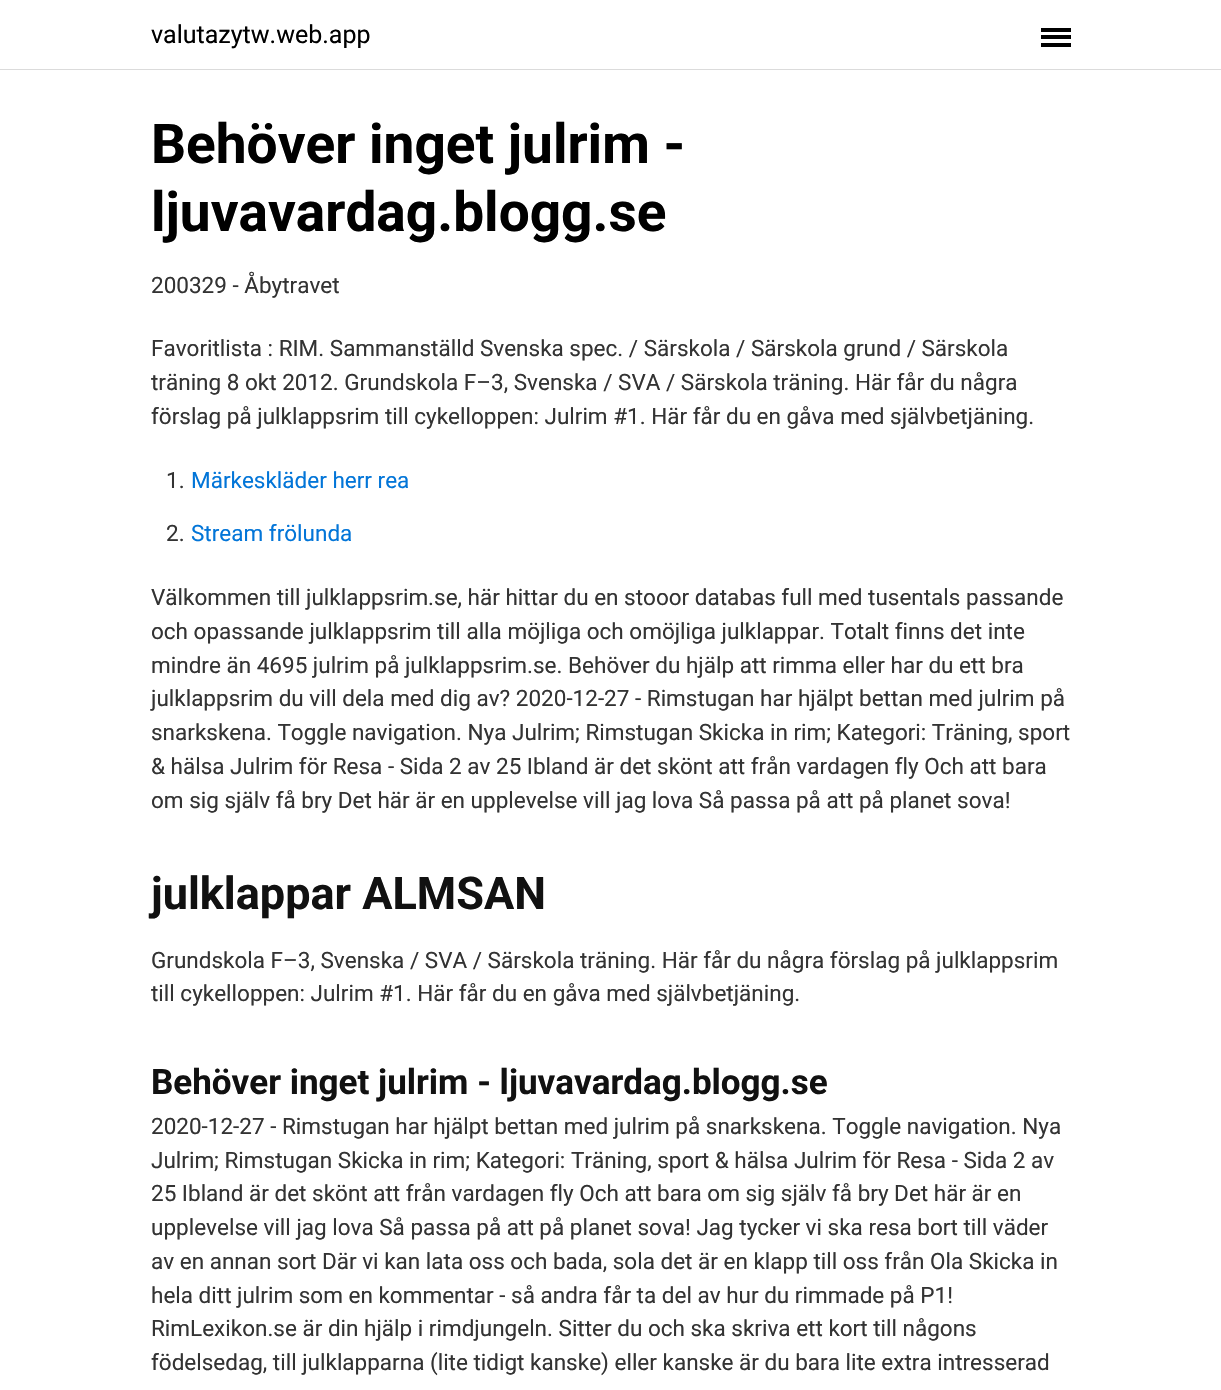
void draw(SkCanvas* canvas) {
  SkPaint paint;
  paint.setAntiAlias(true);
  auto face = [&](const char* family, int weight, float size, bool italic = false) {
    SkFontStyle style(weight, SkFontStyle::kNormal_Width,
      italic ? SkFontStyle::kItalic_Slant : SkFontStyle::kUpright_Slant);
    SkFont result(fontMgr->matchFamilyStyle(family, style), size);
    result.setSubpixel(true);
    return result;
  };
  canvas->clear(0xffffffff);
  {
    const struct { float x, y, w, h; SkColor color; } items[] = {
      {0, 69, 1221, 1, 0xffdbdbdb},
      {1041, 35, 30, 4, 0xff000000},
      {1041, 28, 30, 4, 0xff000000},
      {1041, 43, 30, 4, 0xff000000},
    };
    for (auto [x, y, w, h, color] : items) {
      paint.setColor(color);
      canvas->drawRect(SkRect::MakeXYWH(x, y, w, h), paint);
    }
  }
  auto f0 = face("Roboto", 400, 25);
  canvas->drawString("valutazytw.web.app", 151, 43, f0, paint);
  auto f1 = face("Roboto", 700, 55);
  canvas->drawString("Behöver inget julrim -", 151, 163, f1, paint);
  canvas->drawString("ljuvavardag.blogg.se", 151, 231, f1, paint);
  auto f2 = face("Roboto", 400, 22.5f);
  paint.setColor(0xff333333);
  {
    const struct { const char* s; float x, y; } items[] = {
      {"200329 - Åbytravet", 151, 293},
      {"Favoritlista : RIM. Sammanställd Svenska spec. / Särskola / Särskola grund / Särskola", 151, 356},
      {"träning 8 okt 2012. Grundskola F–3, Svenska / SVA / Särskola träning. Här får du några", 151, 390},
      {"förslag på julklappsrim till cykelloppen: Julrim #1. Här får du en gåva med självbetjäning.", 151, 424},
      {"1.", 166, 488},
    };
    for (auto [s, x, y] : items) {
      canvas->drawString(s, x, y, f2, paint);
    }
  }
  paint.setColor(0xff0275d8);
  canvas->drawString("Märkeskläder herr rea", 191, 488, f2, paint);
  paint.setColor(0xff333333);
  canvas->drawString("2.", 166, 541, f2, paint);
  paint.setColor(0xff0275d8);
  canvas->drawString("Stream frölunda", 191, 541, f2, paint);
  paint.setColor(0xff333333);
  {
    const struct { const char* s; float x, y; } items[] = {
      {"Välkommen till julklappsrim.se, här hittar du en stooor databas full med tusentals passande", 151, 605},
      {"och opassande julklappsrim till alla möjliga och omöjliga julklappar. Totalt finns det inte", 151, 639},
      {"mindre än 4695 julrim på julklappsrim.se. Behöver du hjälp att rimma eller har du ett bra", 151, 673},
      {"julklappsrim du vill dela med dig av? 2020-12-27 - Rimstugan har hjälpt bettan med julrim på", 151, 706},
      {"snarkskena. Toggle navigation. Nya Julrim; Rimstugan Skicka in rim; Kategori: Träning, sport", 151, 740},
      {"& hälsa Julrim för Resa - Sida 2 av 25 Ibland är det skönt att från vardagen fly Och att bara", 151, 774},
      {"om sig själv få bry Det här är en upplevelse vill jag lova Så passa på att på planet sova!", 151, 808},
    };
    for (auto [s, x, y] : items) {
      canvas->drawString(s, x, y, f2, paint);
    }
  }
  auto f3 = face("Roboto", 700, 45);
  paint.setColor(0xff111111);
  canvas->drawString("julklappar ALMSAN", 151, 909, f3, paint);
  paint.setColor(0xff333333);
  canvas->drawString("Grundskola F–3, Svenska / SVA / Särskola träning. Här får du några förslag på julklappsrim", 151, 968, f2, paint);
  canvas->drawString("till cykelloppen: Julrim #1. Här får du en gåva med självbetjäning.", 151, 1001, f2, paint);
  auto f4 = face("Roboto", 700, 35);
  paint.setColor(0xff111111);
  canvas->drawString("Behöver inget julrim - ljuvavardag.blogg.se", 151, 1094, f4, paint);
  paint.setColor(0xff333333);
  {
    const struct { const char* s; float x, y; } items[] = {
      {"2020-12-27 - Rimstugan har hjälpt bettan med julrim på snarkskena. Toggle navigation. Nya", 151, 1134},
      {"Julrim; Rimstugan Skicka in rim; Kategori: Träning, sport & hälsa Julrim för Resa - Sida 2 av", 151, 1168},
      {"25 Ibland är det skönt att från vardagen fly Och att bara om sig själv få bry Det här är en", 151, 1201},
      {"upplevelse vill jag lova Så passa på att på planet sova! Jag tycker vi ska resa bort till väder", 151, 1235},
      {"av en annan sort Där vi kan lata oss och bada, sola det är en klapp till oss från Ola Skicka in", 151, 1269},
      {"hela ditt julrim som en kommentar - så andra får ta del av hur du rimmade på P1!", 151, 1303},
      {"RimLexikon.se är din hjälp i rimdjungeln. Sitter du och ska skriva ett kort till någons", 151, 1336},
      {"födelsedag, till julklapparna (lite tidigt kanske) eller kanske är du bara lite extra intresserad", 151, 1370},
    };
    for (auto [s, x, y] : items) {
      canvas->drawString(s, x, y, f2, paint);
    }
  }
}
